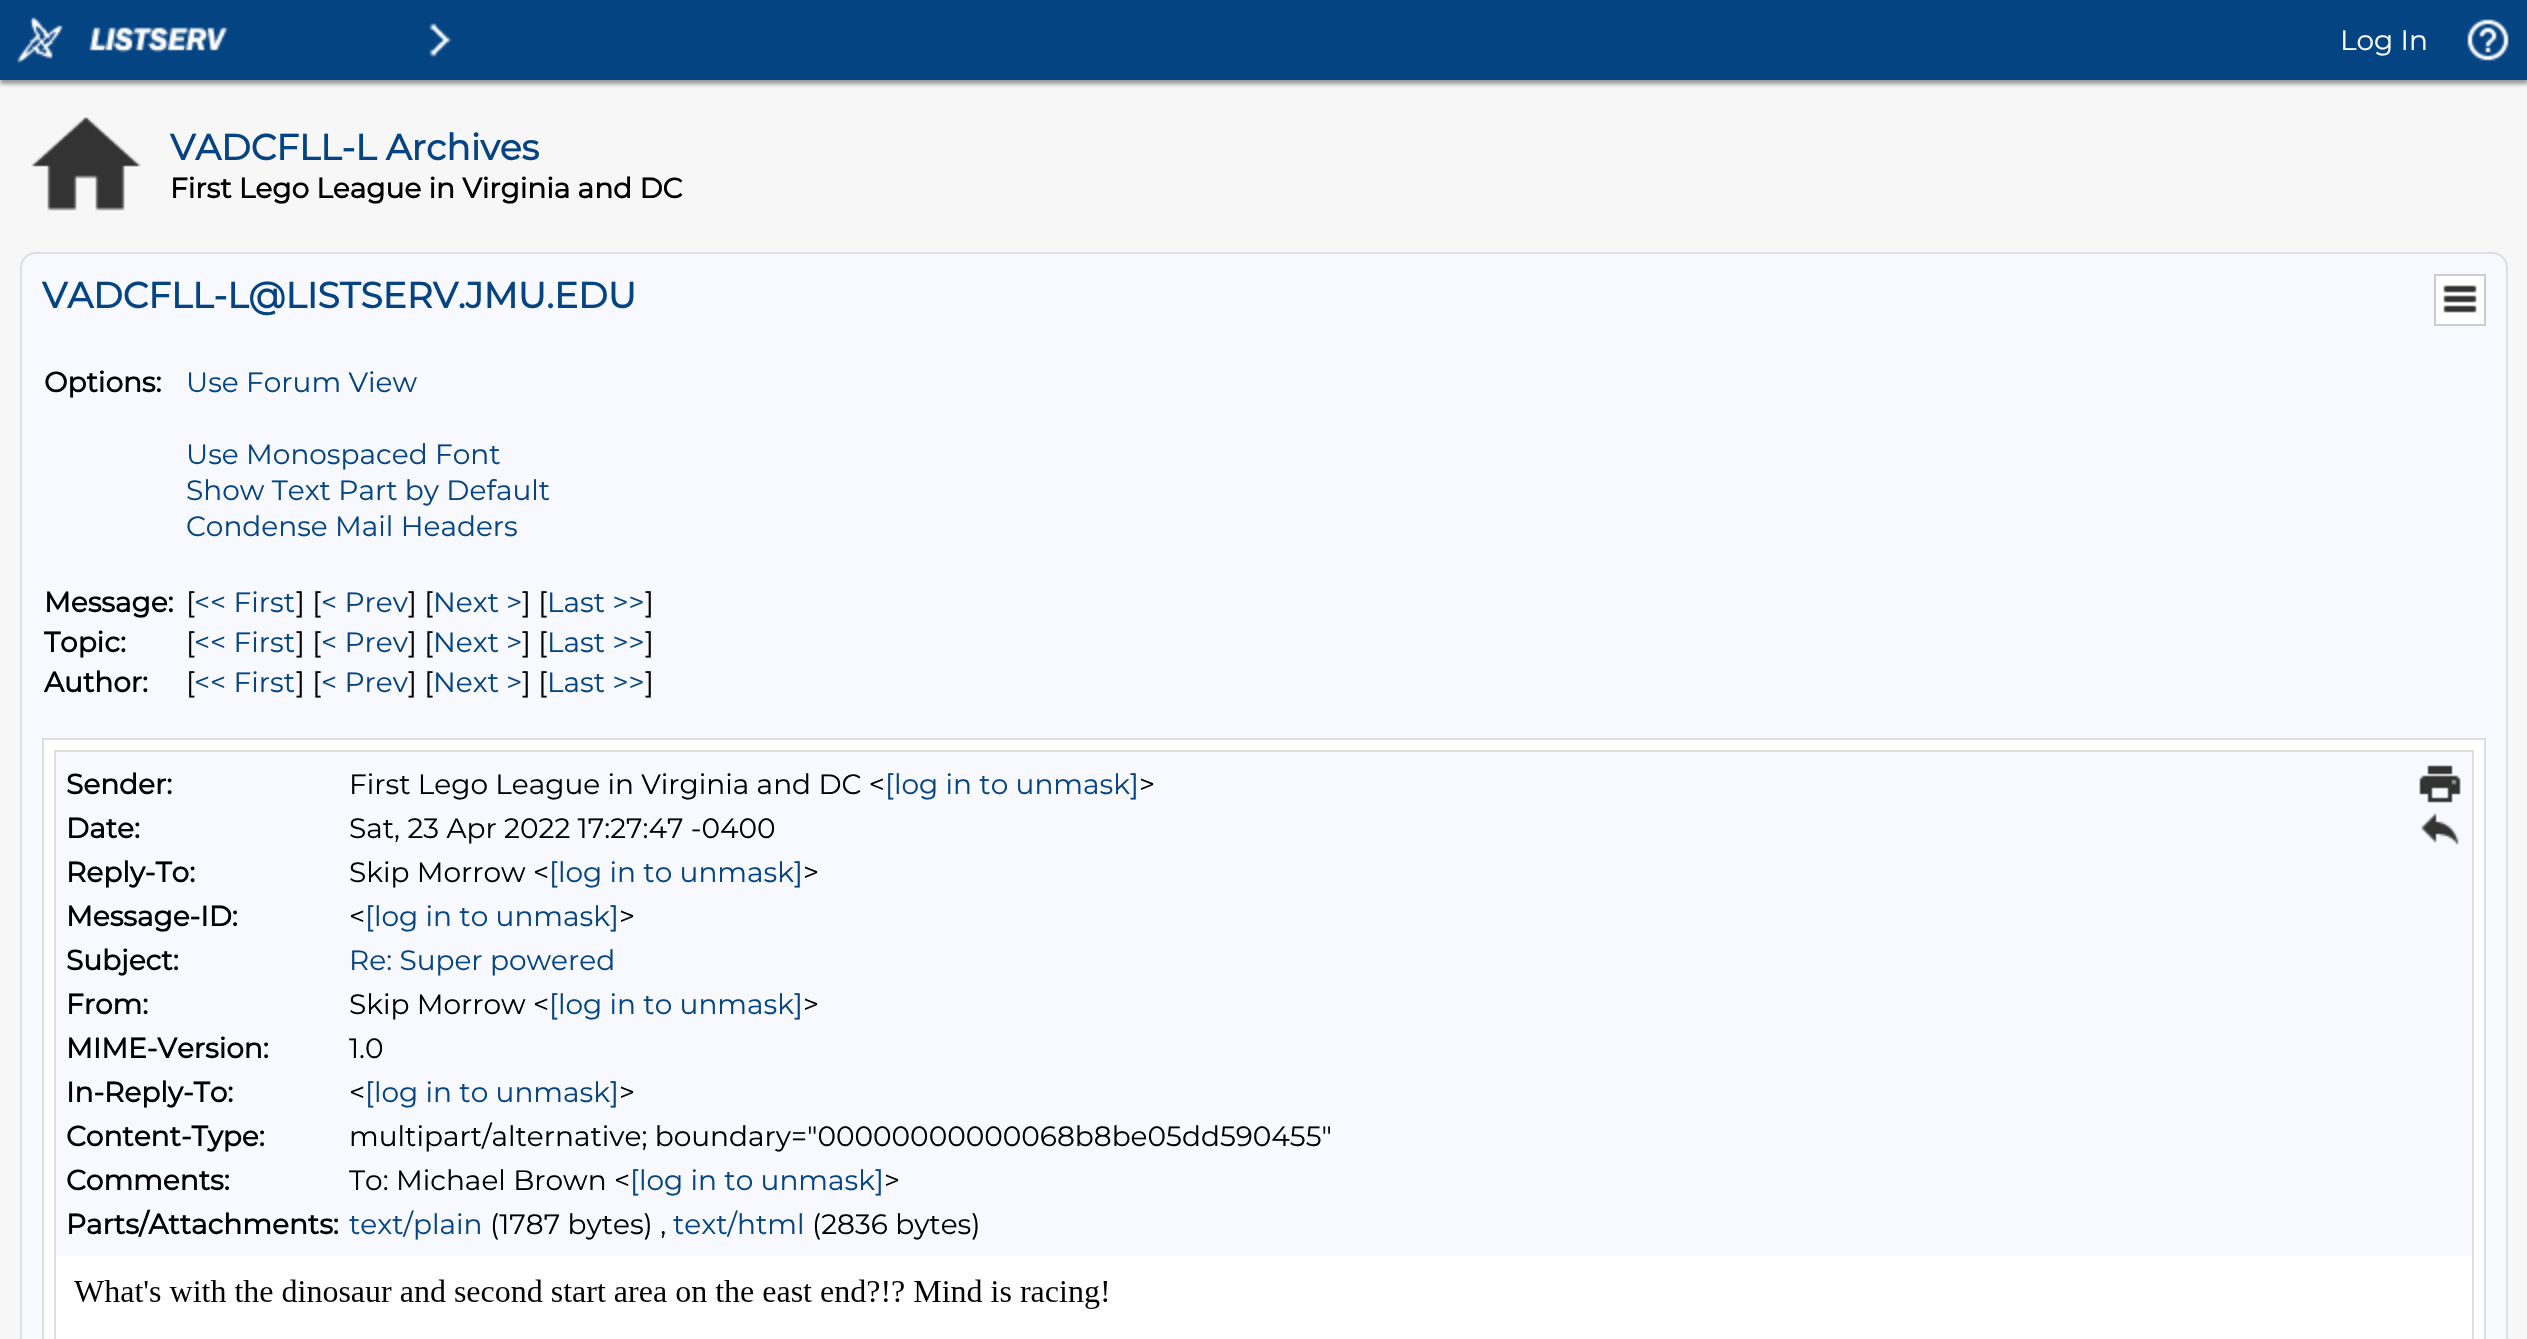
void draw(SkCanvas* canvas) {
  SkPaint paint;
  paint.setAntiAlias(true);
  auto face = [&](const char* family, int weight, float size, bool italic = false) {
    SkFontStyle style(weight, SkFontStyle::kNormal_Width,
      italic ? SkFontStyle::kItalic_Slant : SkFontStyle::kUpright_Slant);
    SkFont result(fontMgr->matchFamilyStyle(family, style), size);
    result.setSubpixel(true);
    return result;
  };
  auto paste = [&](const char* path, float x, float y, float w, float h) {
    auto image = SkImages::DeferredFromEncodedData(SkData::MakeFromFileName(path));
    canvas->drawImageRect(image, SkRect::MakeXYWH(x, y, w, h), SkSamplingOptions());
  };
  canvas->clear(0xfff7f7f7);
  paint.setColor(0xff999999);
  paint.setMaskFilter(SkMaskFilter::MakeBlur(kNormal_SkBlurStyle, 2));
  canvas->drawRect(SkRect::MakeXYWH(0, 4, 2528, 80), paint);
  paint.setMaskFilter(nullptr);
  paint.setColor(0xff054483);
  canvas->drawRect(SkRect::MakeXYWH(0, 0, 2527, 80), paint);
  paste("img/1.png", 17, 17, 46, 46);
  paste("img/2.png", 89, 27, 140, 26);
  paste("img/3.png", 429, 23, 22, 34);
  paste("img/4.png", 2467, 19, 42, 42);
  paste("img/5.png", 31, 117, 110, 94);
  paint.setColor(0xfff7f9fe);
  canvas->drawRoundRect(SkRect::MakeXYWH(21, 253, 2486, 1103), 15, 15, paint);
  paint.setStroke(true);
  paint.setStrokeWidth(2);
  paint.setColor(0xffdedede);
  canvas->drawRoundRect(SkRect::MakeXYWH(21, 253, 2486, 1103), 15, 15, paint);
  paint.setStroke(false);
  paint.setColor(0xffffffff);
  canvas->drawRect(SkRect::MakeXYWH(2435, 275, 50, 50), paint);
  paint.setStroke(true);
  paint.setColor(0xffcccccc);
  canvas->drawRect(SkRect::MakeXYWH(2435, 275, 50, 50), paint);
  paste("img/6.png", 2443, 285, 34, 28);
  paint.setColor(0xffdedede);
  canvas->drawRect(SkRect::MakeXYWH(43, 739, 2442, 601), paint);
  paint.setStroke(false);
  paint.setColor(0xffffffff);
  canvas->drawRect(SkRect::MakeXYWH(44, 740, 2440, 599), paint);
  paint.setStroke(true);
  paint.setColor(0xffdedede);
  canvas->drawRect(SkRect::MakeXYWH(55, 751, 2418, 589), paint);
  paint.setStroke(false);
  paint.setColor(0xfff7f9fe);
  canvas->drawRect(SkRect::MakeXYWH(56, 752, 2416, 504), paint);
  paste("img/7.png", 2419, 765, 42, 38);
  paste("img/8.png", 2421, 813, 38, 32);
  paste("img/9.png", 74, 1279, 1034, 30);
  auto f0 = face("Montserrat", 100, 28);
  paint.setColor(0xffffffff);
  canvas->drawString("Log In", 2340, 50, f0, paint);
  auto f1 = face("Montserrat", 700, 36);
  paint.setColor(0xff054483);
  canvas->drawString("VADCFLL-L Archives", 170, 160, f1, paint);
  auto f2 = face("Montserrat", 700, 28);
  paint.setColor(0xff000000);
  canvas->drawString("First Lego League in Virginia and DC", 170, 198, f2, paint);
  paint.setColor(0xff054483);
  canvas->drawString("VADCFLL-L@LISTSERV.JMU.EDU", 42, 308, f1, paint);
  paint.setColor(0xff000000);
  canvas->drawString("Options:", 44, 392, f2, paint);
  paint.setColor(0xff054483);
  {
    const struct { const char* s; float x, y; } items[] = {
      {"Use Forum View", 186, 392},
      {"Use Monospaced Font", 186, 464},
      {"Show Text Part by Default", 186, 500},
      {"Condense Mail Headers", 186, 536},
    };
    for (auto [s, x, y] : items) {
      canvas->drawString(s, x, y, f0, paint);
    }
  }
  paint.setColor(0xff000000);
  canvas->drawString("Message:", 44, 612, f2, paint);
  canvas->drawString("[", 186, 612, f0, paint);
  paint.setColor(0xff054483);
  canvas->drawString("<< First", 194, 612, f0, paint);
  paint.setColor(0xff000000);
  canvas->drawString("] [", 296, 612, f0, paint);
  paint.setColor(0xff054483);
  canvas->drawString("< Prev", 321, 612, f0, paint);
  paint.setColor(0xff000000);
  canvas->drawString("] [", 408, 612, f0, paint);
  paint.setColor(0xff054483);
  canvas->drawString("Next >", 433, 612, f0, paint);
  paint.setColor(0xff000000);
  canvas->drawString("] [", 522, 612, f0, paint);
  paint.setColor(0xff054483);
  canvas->drawString("Last >>", 547, 612, f0, paint);
  paint.setColor(0xff000000);
  canvas->drawString("]", 645, 612, f0, paint);
  canvas->drawString("Topic:", 44, 652, f2, paint);
  canvas->drawString("[", 186, 652, f0, paint);
  paint.setColor(0xff054483);
  canvas->drawString("<< First", 194, 652, f0, paint);
  paint.setColor(0xff000000);
  canvas->drawString("] [", 296, 652, f0, paint);
  paint.setColor(0xff054483);
  canvas->drawString("< Prev", 321, 652, f0, paint);
  paint.setColor(0xff000000);
  canvas->drawString("] [", 408, 652, f0, paint);
  paint.setColor(0xff054483);
  canvas->drawString("Next >", 433, 652, f0, paint);
  paint.setColor(0xff000000);
  canvas->drawString("] [", 522, 652, f0, paint);
  paint.setColor(0xff054483);
  canvas->drawString("Last >>", 547, 652, f0, paint);
  paint.setColor(0xff000000);
  canvas->drawString("]", 645, 652, f0, paint);
  canvas->drawString("Author:", 44, 692, f2, paint);
  canvas->drawString("[", 186, 692, f0, paint);
  paint.setColor(0xff054483);
  canvas->drawString("<< First", 194, 692, f0, paint);
  paint.setColor(0xff000000);
  canvas->drawString("] [", 296, 692, f0, paint);
  paint.setColor(0xff054483);
  canvas->drawString("< Prev", 321, 692, f0, paint);
  paint.setColor(0xff000000);
  canvas->drawString("] [", 408, 692, f0, paint);
  paint.setColor(0xff054483);
  canvas->drawString("Next >", 433, 692, f0, paint);
  paint.setColor(0xff000000);
  canvas->drawString("] [", 522, 692, f0, paint);
  paint.setColor(0xff054483);
  canvas->drawString("Last >>", 547, 692, f0, paint);
  paint.setColor(0xff000000);
  canvas->drawString("]", 645, 692, f0, paint);
  canvas->drawString("Sender:", 66, 794, f2, paint);
  canvas->drawString("First Lego League in Virginia and DC <", 349, 794, f0, paint);
  paint.setColor(0xff054483);
  canvas->drawString("[log in to unmask]", 885, 794, f0, paint);
  paint.setColor(0xff000000);
  canvas->drawString(">", 1139, 794, f0, paint);
  canvas->drawString("Date:", 66, 838, f2, paint);
  canvas->drawString("Sat, 23 Apr 2022 17:27:47 -0400", 349, 838, f0, paint);
  canvas->drawString("Reply-To:", 66, 882, f2, paint);
  canvas->drawString("Skip Morrow <", 349, 882, f0, paint);
  paint.setColor(0xff054483);
  canvas->drawString("[log in to unmask]", 549, 882, f0, paint);
  paint.setColor(0xff000000);
  canvas->drawString(">", 803, 882, f0, paint);
  canvas->drawString("Message-ID:", 66, 926, f2, paint);
  canvas->drawString("<", 349, 926, f0, paint);
  paint.setColor(0xff054483);
  canvas->drawString("[log in to unmask]", 365, 926, f0, paint);
  paint.setColor(0xff000000);
  canvas->drawString(">", 619, 926, f0, paint);
  canvas->drawString("Subject:", 66, 970, f2, paint);
  paint.setColor(0xff054483);
  canvas->drawString("Re: Super powered", 349, 970, f0, paint);
  paint.setColor(0xff000000);
  canvas->drawString("From:", 66, 1014, f2, paint);
  canvas->drawString("Skip Morrow <", 349, 1014, f0, paint);
  paint.setColor(0xff054483);
  canvas->drawString("[log in to unmask]", 549, 1014, f0, paint);
  paint.setColor(0xff000000);
  canvas->drawString(">", 803, 1014, f0, paint);
  canvas->drawString("MIME-Version:", 66, 1058, f2, paint);
  canvas->drawString("1.0", 349, 1058, f0, paint);
  canvas->drawString("In-Reply-To:", 66, 1102, f2, paint);
  canvas->drawString("<", 349, 1102, f0, paint);
  paint.setColor(0xff054483);
  canvas->drawString("[log in to unmask]", 365, 1102, f0, paint);
  paint.setColor(0xff000000);
  canvas->drawString(">", 619, 1102, f0, paint);
  canvas->drawString("Content-Type:", 66, 1146, f2, paint);
  canvas->drawString("multipart/alternative; boundary=\"00000000000068b8be05dd590455\"", 349, 1146, f0, paint);
  canvas->drawString("Comments:", 66, 1190, f2, paint);
  canvas->drawString("To: Michael Brown <", 349, 1190, f0, paint);
  paint.setColor(0xff054483);
  canvas->drawString("[log in to unmask]", 630, 1190, f0, paint);
  paint.setColor(0xff000000);
  canvas->drawString(">", 884, 1190, f0, paint);
  canvas->drawString("Parts/Attachments:", 66, 1234, f2, paint);
  paint.setColor(0xff054483);
  canvas->drawString("text/plain", 349, 1234, f0, paint);
  paint.setColor(0xff000000);
  canvas->drawString("(1787 bytes) ,", 490, 1234, f0, paint);
  paint.setColor(0xff054483);
  canvas->drawString("text/html", 673, 1234, f0, paint);
  paint.setColor(0xff000000);
  canvas->drawString("(2836 bytes)", 812, 1234, f0, paint);
}
